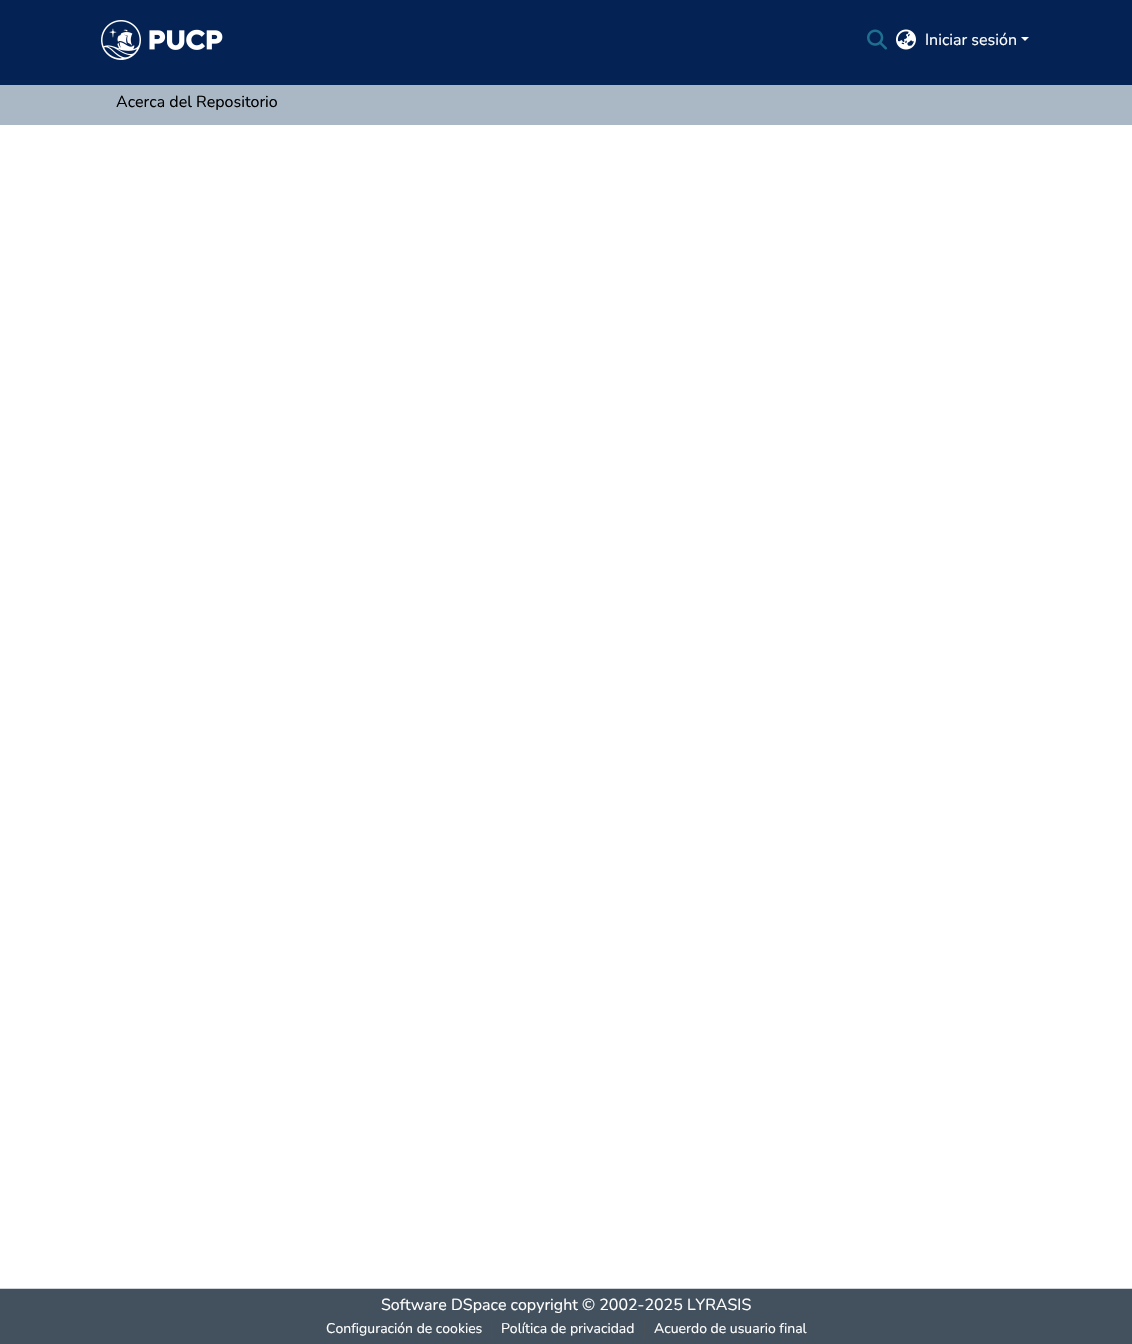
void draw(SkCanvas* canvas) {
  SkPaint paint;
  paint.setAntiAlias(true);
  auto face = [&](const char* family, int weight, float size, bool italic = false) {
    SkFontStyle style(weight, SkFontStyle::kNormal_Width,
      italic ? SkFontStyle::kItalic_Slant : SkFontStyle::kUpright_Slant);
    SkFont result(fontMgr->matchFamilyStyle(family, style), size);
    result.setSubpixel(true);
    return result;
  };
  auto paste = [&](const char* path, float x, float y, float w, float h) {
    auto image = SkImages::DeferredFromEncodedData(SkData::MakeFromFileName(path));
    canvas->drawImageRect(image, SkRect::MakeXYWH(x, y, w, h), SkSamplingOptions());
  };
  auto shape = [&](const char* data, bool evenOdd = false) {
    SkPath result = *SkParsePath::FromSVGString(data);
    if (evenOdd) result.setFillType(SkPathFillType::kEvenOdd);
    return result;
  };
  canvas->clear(0xffffffff);
  paint.setColor(0xff042354);
  canvas->drawRect(SkRect::MakeXYWH(0, 0, 1132, 85), paint);
  paste("img/1.png", 101, 20, 122, 40);
  paste("img/2.png", 867, 29, 20, 21);
  paste("img/3.png", 896, 29, 20, 21);
  paint.setColor(0xffffffff);
  canvas->drawPath(shape("M1021 37H1029L1025 41Z"), paint);
  {
    const struct { float x, y, w, h; SkColor color; } items[] = {
      {0, 85, 1132, 40, 0xffaab8c6},
      {0, 1289, 1132, 55, 0xff43515f},
      {0, 1288, 1132, 1, 0xffced4da},
      {491, 1317, 1, 23, 0xff495057},
      {644, 1317, 1, 23, 0xff495057},
    };
    for (auto [x, y, w, h, color] : items) {
      paint.setColor(color);
      canvas->drawRect(SkRect::MakeXYWH(x, y, w, h), paint);
    }
  }
  auto f0 = face("Nunito", 400, 16);
  paint.setColor(0xffffffff);
  canvas->drawString("Iniciar sesión", 925, 45, f0, paint);
  paint.setColor(0xff000000);
  canvas->drawString("Acerca del Repositorio", 116, 107, f0, paint);
  paint.setColor(0xffffffff);
  canvas->drawString("Software DSpace copyright © 2002-2025 LYRASIS", 381, 1310, f0, paint);
  auto f1 = face("Nunito", 400, 14);
  {
    const struct { const char* s; float x, y; } items[] = {
      {"Configuración de cookies", 326, 1333},
      {"Política de privacidad", 501, 1333},
      {"Acuerdo de usuario final", 654, 1333},
    };
    for (auto [s, x, y] : items) {
      canvas->drawString(s, x, y, f1, paint);
    }
  }
}
